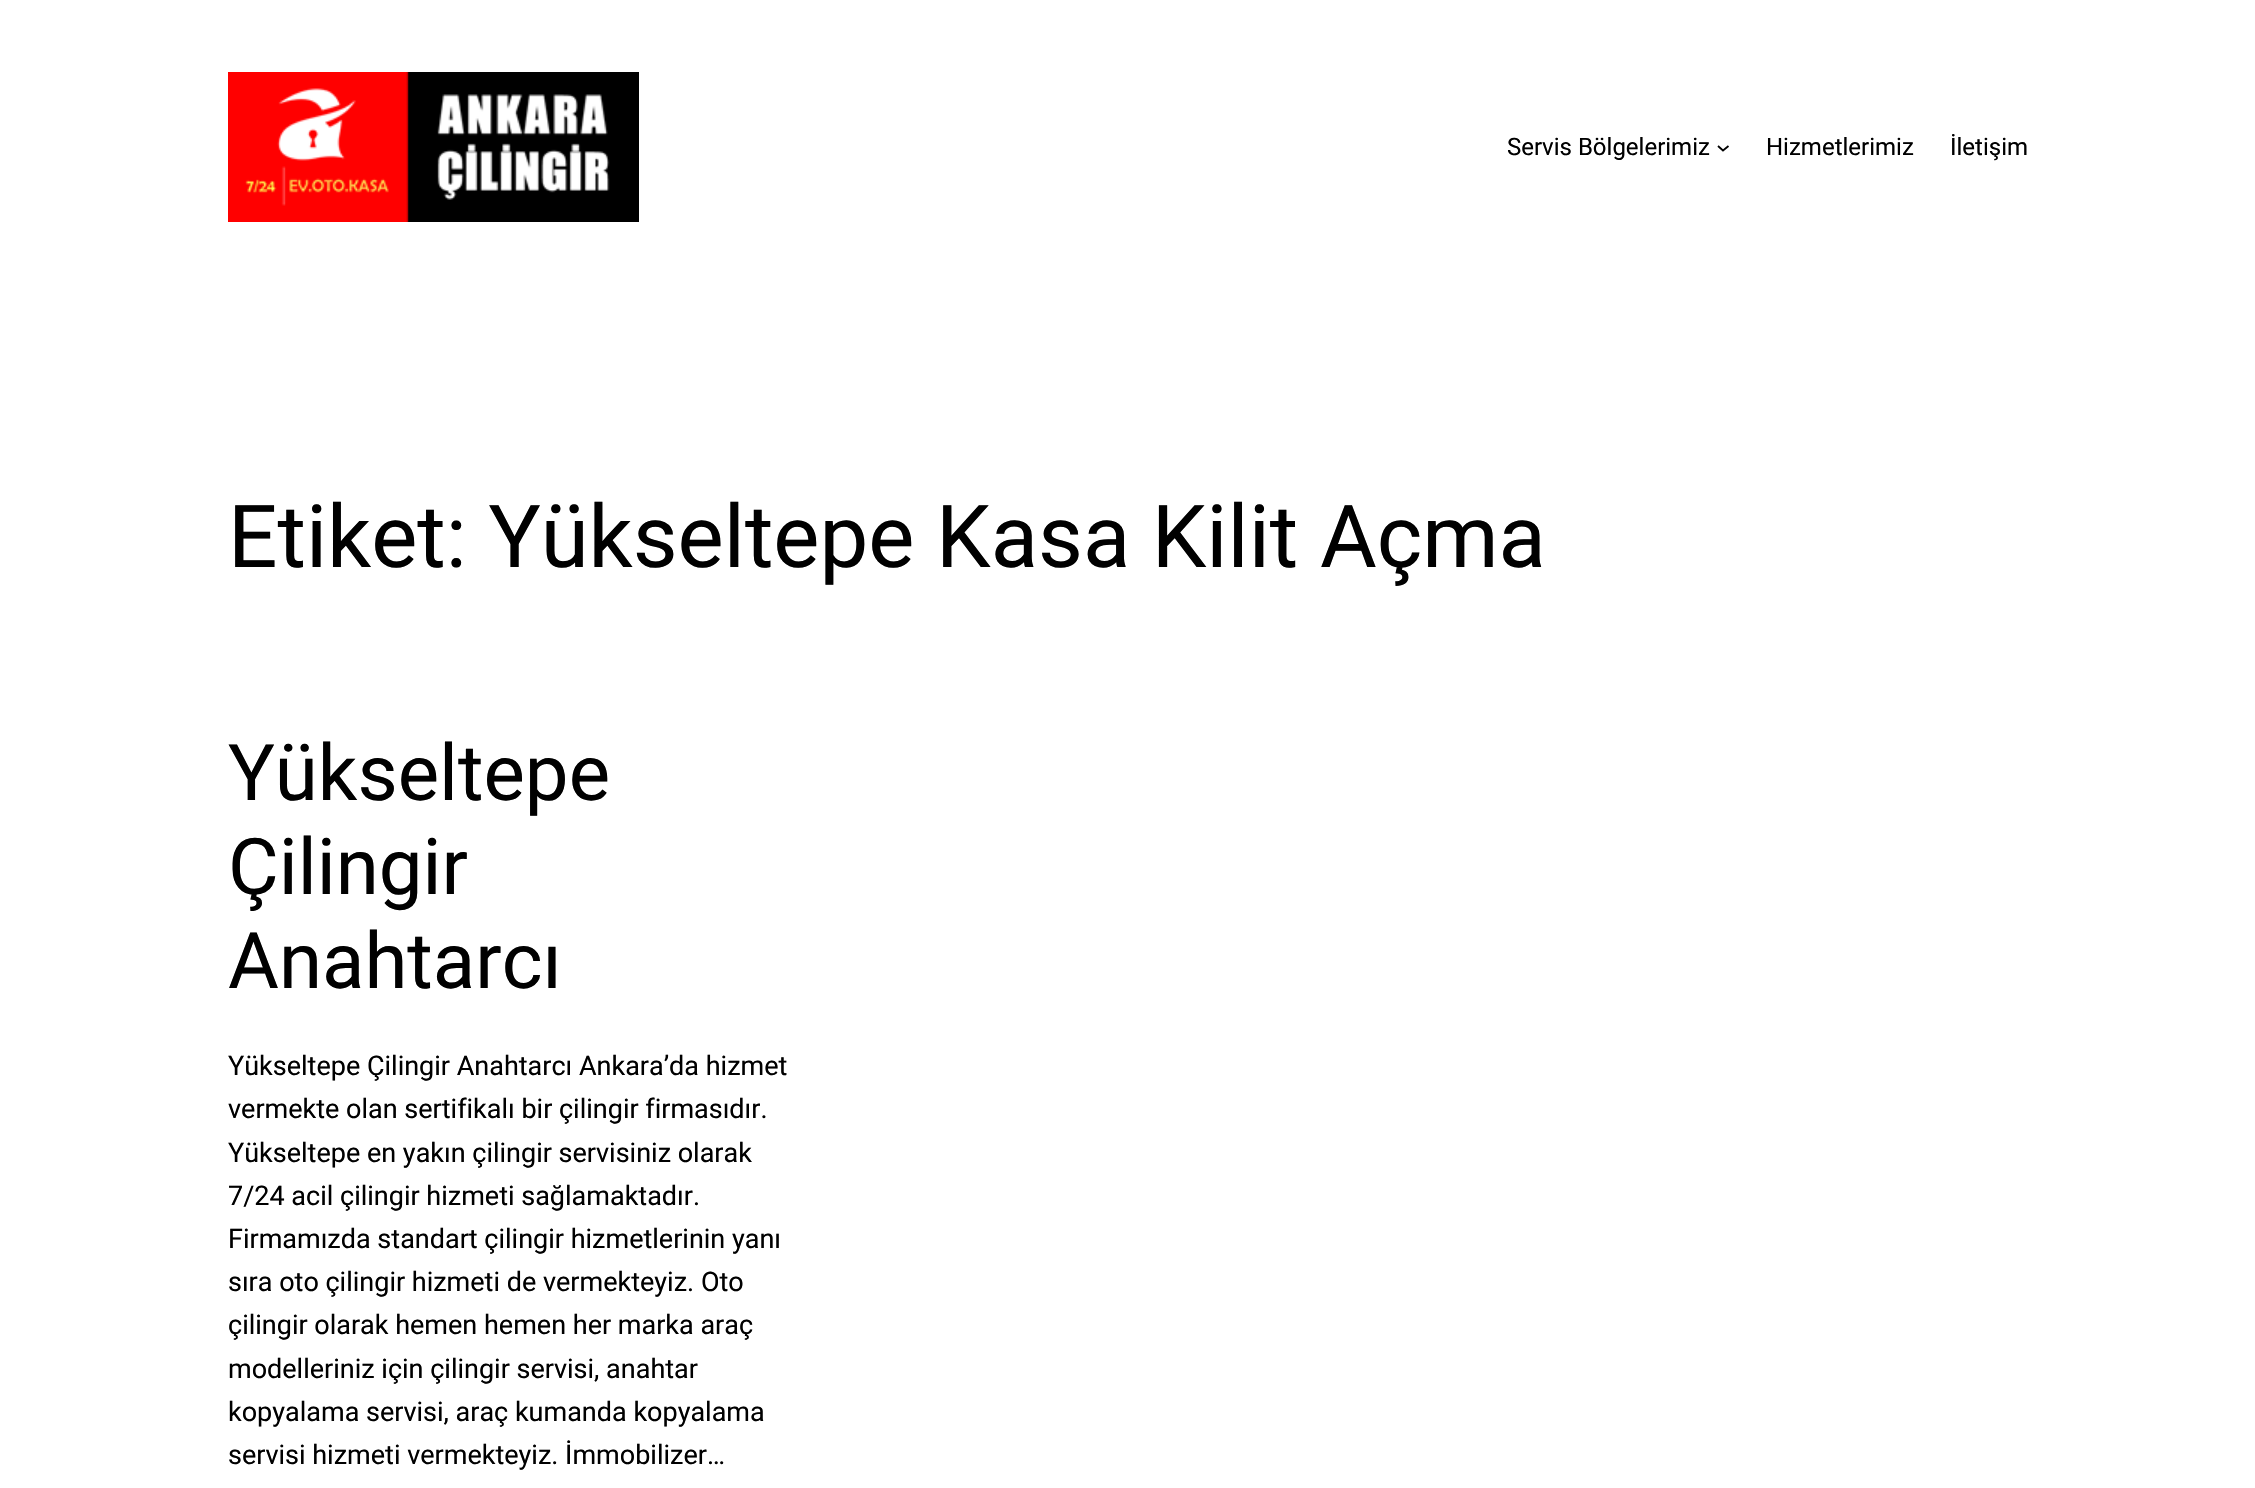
void draw(SkCanvas* canvas) {
  SkPaint paint;
  paint.setAntiAlias(true);
  auto face = [&](const char* family, int weight, float size, bool italic = false) {
    SkFontStyle style(weight, SkFontStyle::kNormal_Width,
      italic ? SkFontStyle::kItalic_Slant : SkFontStyle::kUpright_Slant);
    SkFont result(fontMgr->matchFamilyStyle(family, style), size);
    result.setSubpixel(true);
    return result;
  };
  auto paste = [&](const char* path, float x, float y, float w, float h) {
    auto image = SkImages::DeferredFromEncodedData(SkData::MakeFromFileName(path));
    canvas->drawImageRect(image, SkRect::MakeXYWH(x, y, w, h), SkSamplingOptions());
  };
  auto shape = [&](const char* data, bool evenOdd = false) {
    SkPath result = *SkParsePath::FromSVGString(data);
    if (evenOdd) result.setFillType(SkPathFillType::kEvenOdd);
    return result;
  };
  canvas->clear(0xffffffff);
  paste("img/1.png", 228, 72, 411, 150);
  paint.setStroke(true);
  paint.setStrokeWidth(1.8f);
  paint.setColor(0xff000000);
  canvas->drawPath(shape("M1718 146L1723 150.5L1728.5 146"), paint);
  auto f0 = face("Roboto", 400, 24);
  paint.setStroke(false);
  {
    const struct { const char* s; float x, y; } items[] = {
      {"Servis Bölgelerimiz", 1507, 155},
      {"Hizmetlerimiz", 1766, 155},
      {"İletişim", 1950, 155},
    };
    for (auto [s, x, y] : items) {
      canvas->drawString(s, x, y, f0, paint);
    }
  }
  auto f1 = face("Roboto", 400, 87);
  canvas->drawString("Etiket: Yükseltepe Kasa Kilit Açma", 228, 567, f1, paint);
  auto f2 = face("Roboto", 400, 78);
  {
    const struct { const char* s; float x, y; } items[] = {
      {"Yükseltepe", 228, 800},
      {"Çilingir", 228, 894},
      {"Anahtarcı", 228, 988},
    };
    for (auto [s, x, y] : items) {
      canvas->drawString(s, x, y, f2, paint);
    }
  }
  auto f3 = face("Roboto", 400, 27);
  {
    const struct { const char* s; float x, y; } items[] = {
      {"Yükseltepe Çilingir Anahtarcı Ankara’da hizmet", 228, 1075},
      {"vermekte olan sertifikalı bir çilingir firmasıdır.", 228, 1118},
      {"Yükseltepe en yakın çilingir servisiniz olarak", 228, 1162},
      {"7/24 acil çilingir hizmeti sağlamaktadır.", 228, 1205},
      {"Firmamızda standart çilingir hizmetlerinin yanı", 228, 1248},
      {"sıra oto çilingir hizmeti de vermekteyiz. Oto", 228, 1291},
      {"çilingir olarak hemen hemen her marka araç", 228, 1334},
      {"modelleriniz için çilingir servisi, anahtar", 228, 1378},
      {"kopyalama servisi, araç kumanda kopyalama", 228, 1421},
      {"servisi hizmeti vermekteyiz. İmmobilizer…", 228, 1464},
    };
    for (auto [s, x, y] : items) {
      canvas->drawString(s, x, y, f3, paint);
    }
  }
}
